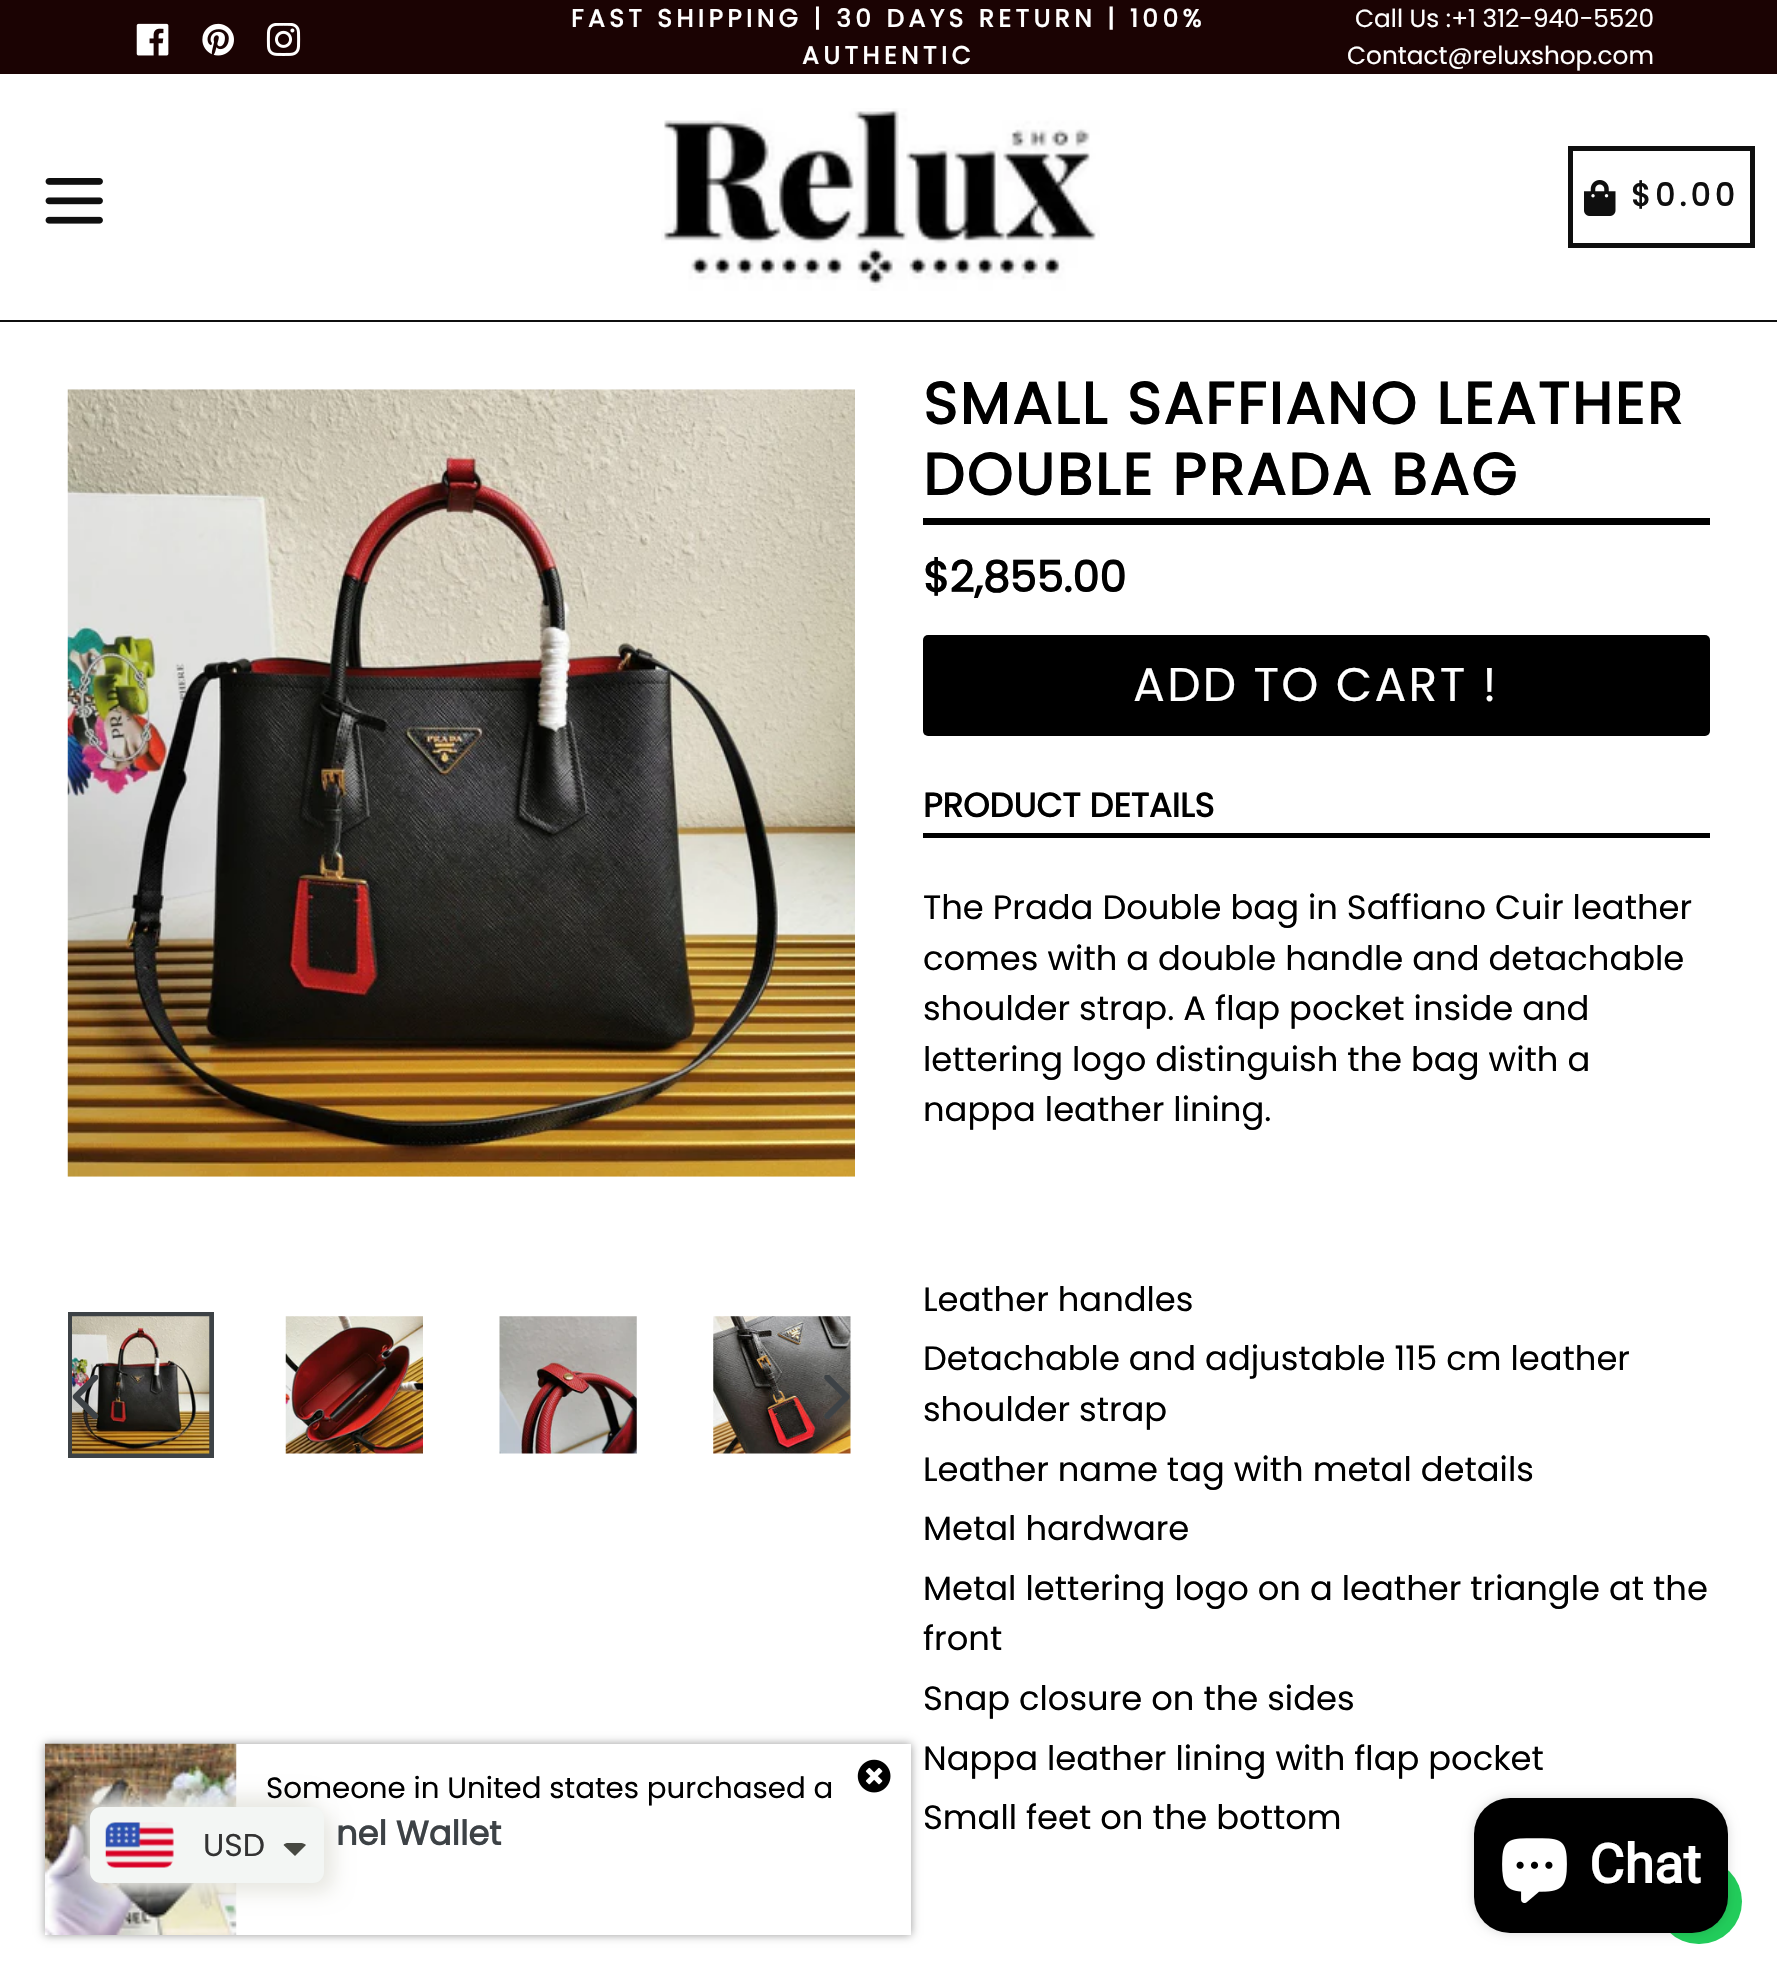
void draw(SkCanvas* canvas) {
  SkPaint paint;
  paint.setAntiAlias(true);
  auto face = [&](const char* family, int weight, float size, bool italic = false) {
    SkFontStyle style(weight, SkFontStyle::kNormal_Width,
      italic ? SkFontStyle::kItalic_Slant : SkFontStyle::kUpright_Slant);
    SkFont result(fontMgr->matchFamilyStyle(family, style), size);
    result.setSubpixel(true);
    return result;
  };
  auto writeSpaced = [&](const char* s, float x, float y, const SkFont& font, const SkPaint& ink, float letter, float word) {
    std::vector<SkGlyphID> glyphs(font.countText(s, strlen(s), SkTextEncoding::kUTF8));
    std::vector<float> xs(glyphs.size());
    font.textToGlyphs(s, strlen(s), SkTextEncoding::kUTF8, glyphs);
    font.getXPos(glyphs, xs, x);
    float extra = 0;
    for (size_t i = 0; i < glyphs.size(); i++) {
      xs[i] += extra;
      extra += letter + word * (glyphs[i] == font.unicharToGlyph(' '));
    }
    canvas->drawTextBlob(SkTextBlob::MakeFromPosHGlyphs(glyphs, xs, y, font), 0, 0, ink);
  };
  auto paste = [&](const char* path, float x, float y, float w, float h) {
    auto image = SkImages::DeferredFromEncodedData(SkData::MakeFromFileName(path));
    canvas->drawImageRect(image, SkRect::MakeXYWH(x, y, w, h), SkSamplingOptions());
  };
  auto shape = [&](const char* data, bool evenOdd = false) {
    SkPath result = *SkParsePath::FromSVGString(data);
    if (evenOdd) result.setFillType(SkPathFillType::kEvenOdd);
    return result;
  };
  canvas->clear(0xffffffff);
  paint.setColor(0xff1b0303);
  canvas->drawRect(SkRect::MakeXYWH(0, 0, 1777, 74), paint);
  paste("img/1.png", 136, 23, 33, 33);
  paste("img/2.png", 202, 23, 32, 33);
  paste("img/3.png", 266, 23, 35, 33);
  paint.setColor(0xff0f0f0f);
  canvas->drawRect(SkRect::MakeXYWH(0, 320, 1777, 2), paint);
  paste("img/4.png", 45, 178, 58, 46);
  paste("img/5.png", 661, 108, 439, 183);
  paint.setStroke(true);
  paint.setStrokeWidth(5);
  canvas->drawRect(SkRect::MakeXYWH(1570.5f, 148.5f, 182, 97), paint);
  paste("img/6.png", 1584, 180, 32, 36);
  canvas->save();
  canvas->clipPath(shape("M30 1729H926V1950H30ZM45 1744H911V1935H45Z", true), true);
  paint.setStroke(false);
  paint.setColor(0x66000000);
  paint.setMaskFilter(SkMaskFilter::MakeBlur(kNormal_SkBlurStyle, 4.5f));
  canvas->drawRect(SkRect::MakeXYWH(45, 1744, 866, 191), paint);
  paint.setMaskFilter(nullptr);
  canvas->restore();
  paste("img/8.png", 45, 1743, 192, 192);
  paint.setColor(0xffe8e8e2);
  paint.setMaskFilter(SkMaskFilter::MakeBlur(kNormal_SkBlurStyle, 10));
  canvas->drawRoundRect(SkRect::MakeXYWH(81, 1798, 234, 76), 11, 11, paint);
  paint.setMaskFilter(nullptr);
  paint.setMaskFilter(SkMaskFilter::MakeBlur(kNormal_SkBlurStyle, 10));
  canvas->drawRoundRect(SkRect::MakeXYWH(99, 1816, 234, 76), 11, 11, paint);
  paint.setMaskFilter(nullptr);
  paint.setColor(0xfff3f6f4);
  canvas->drawRoundRect(SkRect::MakeXYWH(90, 1807, 234, 76), 11, 11, paint);
  paste("img/7.png", 105, 1822, 69, 46);
  paint.setColor(0xff474942);
  canvas->drawPath(shape("M288 1843H301.5C303 1843 305 1844 306 1845L295 1856L283.5 1845C284.5 1843.5 286.5 1843 288 1843Z"), paint);
  paste("img/9.png", 857, 1759, 34, 34);
  paste("img/10.png", 67, 389, 788, 788);
  paint.setStroke(true);
  paint.setColor(0xff3d4246);
  canvas->drawRect(SkRect::MakeXYWH(70.5f, 1314.5f, 141, 141), paint);
  paste("img/11.png", 72, 1316, 138, 138);
  paste("img/12.png", 285, 1316, 138, 138);
  paste("img/13.png", 499, 1316, 138, 138);
  paste("img/14.png", 713, 1316, 138, 138);
  paste("img/15.png", 72, 1375, 27, 45);
  paste("img/16.png", 824, 1375, 26, 44);
  paint.setStroke(false);
  paint.setColor(0xff000000);
  canvas->drawRect(SkRect::MakeXYWH(923, 518, 787, 7), paint);
  canvas->drawRoundRect(SkRect::MakeXYWH(923, 635, 787, 101), 5, 5, paint);
  canvas->drawRect(SkRect::MakeXYWH(923, 833, 787, 5), paint);
  paint.setColor(0xff22cd5b);
  canvas->drawRoundRect(SkRect::MakeXYWH(1656, 1859, 86, 85), 42.5f, 42.5f, paint);
  paint.setColor(0x26000000);
  paint.setMaskFilter(SkMaskFilter::MakeBlur(kNormal_SkBlurStyle, 5.5f));
  canvas->drawRoundRect(SkRect::MakeXYWH(1474, 1798, 254, 135), 36, 36, paint);
  paint.setMaskFilter(nullptr);
  paint.setColor(0xff000000);
  canvas->drawRoundRect(SkRect::MakeXYWH(1474, 1798, 254, 135), 36, 36, paint);
  paste("img/17.png", 1502, 1838, 65, 65);
  auto f0 = face("Poppins", 700, 24.75f);
  paint.setColor(0xffffffff);
  writeSpaced("FAST SHIPPING | 30 DAYS RETURN | 100%", 571, 27, f0, paint, 4.5f, 0);
  writeSpaced("AUTHENTIC", 802, 64, f0, paint, 4.5f, 0);
  auto f1 = face("Poppins", 400, 24.75f);
  canvas->drawString("Call Us :+1 312-940-5520", 1355, 27, f1, paint);
  canvas->drawString("Contact@reluxshop.com", 1347, 64, f1, paint);
  auto f2 = face("Poppins", 700, 31.5f);
  paint.setColor(0xff0f0f0f);
  writeSpaced("$0.00", 1631, 206, f2, paint, 4.5f, 0);
  auto f3 = face("Poppins", 400, 31.5f);
  paint.setColor(0xff333333);
  canvas->drawString("USD", 203, 1856, f3, paint);
  auto f4 = face("Poppins", 400, 29.25f);
  paint.setColor(0xff000000);
  canvas->drawString("Someone in United states purchased a", 266, 1798, f4, paint);
  auto f5 = face("Poppins", 700, 33.75f);
  paint.setColor(0xff3d4246);
  canvas->drawString("nel Wallet", 336, 1845, f5, paint);
  auto f6 = face("Poppins", 700, 58.5f);
  paint.setColor(0xff000000);
  writeSpaced("SMALL SAFFIANO LEATHER", 923, 424, f6, paint, 2.25f, 0);
  writeSpaced("DOUBLE PRADA BAG", 923, 495, f6, paint, 2.25f, 0);
  auto f7 = face("Poppins", 700, 42.75f);
  canvas->drawString("$2,855.00", 923, 592, f7, paint);
  auto f8 = face("Poppins", 400, 47.25f);
  paint.setColor(0xffffffff);
  writeSpaced("ADD TO CART !", 1133, 701, f8, paint, 2.3f, 0);
  paint.setColor(0xff000000);
  canvas->drawString("PRODUCT DETAILS", 923, 817, f5, paint);
  auto f9 = face("Poppins", 400, 33.75f);
  {
    const struct { const char* s; float x, y; } items[] = {
      {"The Prada Double bag in Saffiano Cuir leather", 923, 919},
      {"comes with a double handle and detachable", 923, 970},
      {"shoulder strap. A flap pocket inside and", 923, 1020},
      {"lettering logo distinguish the bag with a", 923, 1071},
      {"nappa leather lining.", 923, 1121},
      {"Leather handles", 923, 1311},
      {"Detachable and adjustable 115 cm leather", 923, 1370},
      {"shoulder strap", 923, 1421},
      {"Leather name tag with metal details", 923, 1481},
      {"Metal hardware", 923, 1540},
      {"Metal lettering logo on a leather triangle at the", 923, 1600},
      {"front", 923, 1650},
      {"Snap closure on the sides", 923, 1710},
      {"Nappa leather lining with flap pocket", 923, 1770},
      {"Small feet on the bottom", 923, 1829},
    };
    for (auto [s, x, y] : items) {
      canvas->drawString(s, x, y, f9, paint);
    }
  }
  auto f10 = face("Roboto", 700, 54);
  paint.setColor(0xffffffff);
  canvas->drawString("Chat", 1589, 1883, f10, paint);
}
